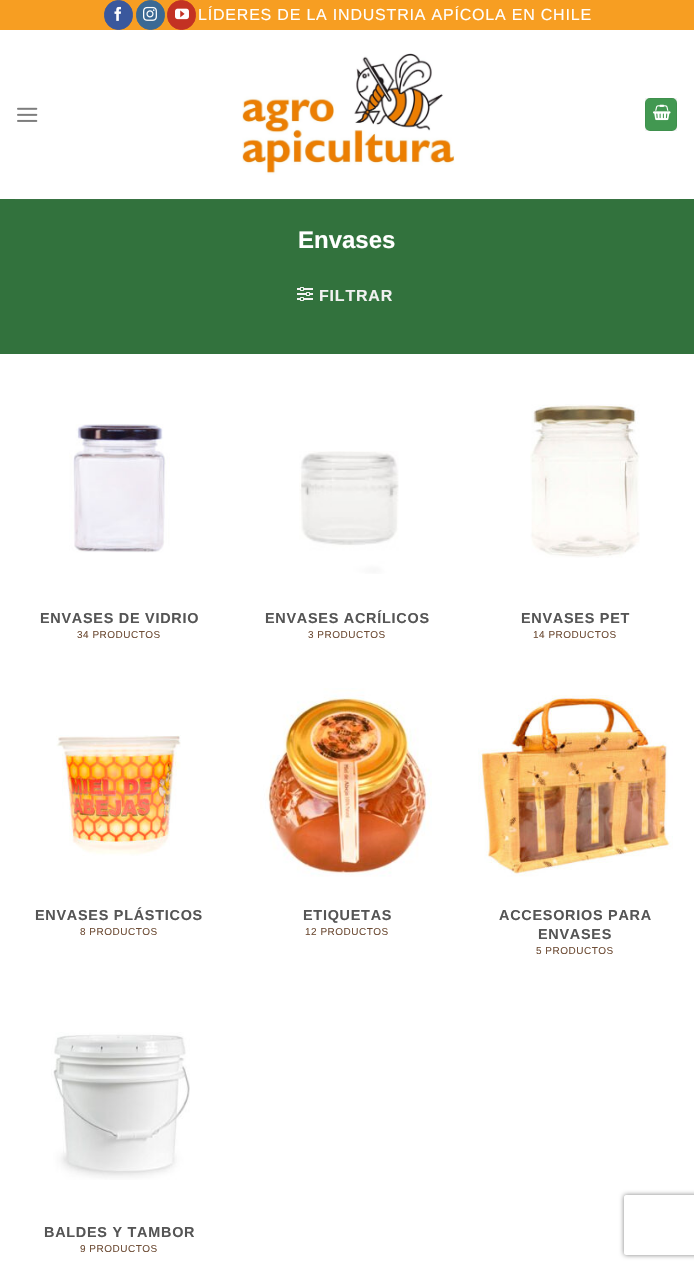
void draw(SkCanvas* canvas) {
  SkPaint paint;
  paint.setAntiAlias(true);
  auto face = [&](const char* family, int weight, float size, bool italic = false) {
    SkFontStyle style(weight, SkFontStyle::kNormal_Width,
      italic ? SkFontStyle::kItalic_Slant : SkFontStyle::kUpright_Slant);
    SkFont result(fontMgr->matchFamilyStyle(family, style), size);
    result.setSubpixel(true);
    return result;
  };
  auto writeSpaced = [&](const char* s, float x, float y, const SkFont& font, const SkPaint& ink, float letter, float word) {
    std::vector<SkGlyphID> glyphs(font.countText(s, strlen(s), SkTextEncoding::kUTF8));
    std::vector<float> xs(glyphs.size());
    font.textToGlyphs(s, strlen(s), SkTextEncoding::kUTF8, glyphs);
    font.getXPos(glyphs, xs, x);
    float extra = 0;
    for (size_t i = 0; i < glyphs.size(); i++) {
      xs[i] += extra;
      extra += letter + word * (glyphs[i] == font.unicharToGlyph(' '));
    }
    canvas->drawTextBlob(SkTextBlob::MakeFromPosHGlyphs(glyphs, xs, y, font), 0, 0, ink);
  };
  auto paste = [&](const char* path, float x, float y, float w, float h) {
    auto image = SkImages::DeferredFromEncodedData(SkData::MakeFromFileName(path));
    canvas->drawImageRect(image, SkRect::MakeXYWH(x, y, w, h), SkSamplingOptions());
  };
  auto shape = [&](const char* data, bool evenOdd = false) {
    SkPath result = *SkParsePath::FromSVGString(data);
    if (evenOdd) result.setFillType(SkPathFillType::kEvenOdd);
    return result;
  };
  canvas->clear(0xffffffff);
  paint.setColor(0xfff79e22);
  canvas->drawRect(SkRect::MakeXYWH(0, 0, 694, 30), paint);
  paint.setColor(0xff3a589d);
  canvas->drawRoundRect(SkRect::MakeXYWH(104.5f, 0.5f, 28, 29), 14, 14, paint);
  paint.setStroke(true);
  paint.setStrokeWidth(1);
  canvas->drawRoundRect(SkRect::MakeXYWH(104.5f, 0.5f, 28, 29), 14, 14, paint);
  paste("img/1.png", 114, 6, 7, 15);
  paint.setStroke(false);
  paint.setColor(0xff3b6994);
  canvas->drawRoundRect(SkRect::MakeXYWH(136.5f, 0.5f, 28, 29), 14, 14, paint);
  paint.setStroke(true);
  canvas->drawRoundRect(SkRect::MakeXYWH(136.5f, 0.5f, 28, 29), 14, 14, paint);
  paste("img/2.png", 143, 6, 14, 15);
  paint.setStroke(false);
  paint.setColor(0xffc33223);
  canvas->drawRoundRect(SkRect::MakeXYWH(167.5f, 0.5f, 28, 29), 14, 14, paint);
  paint.setStroke(true);
  canvas->drawRoundRect(SkRect::MakeXYWH(167.5f, 0.5f, 28, 29), 14, 14, paint);
  paste("img/3.png", 175, 8, 14, 12);
  paste("img/4.png", 17, 107, 21, 15);
  paste("img/5.png", 242, 53, 213, 122);
  paint.setStroke(false);
  paint.setColor(0xff429851);
  canvas->drawRoundRect(SkRect::MakeXYWH(645, 98, 32, 33), 5, 5, paint);
  paint.setStroke(true);
  paint.setColor(0x0d000000);
  canvas->drawRect(SkRect::MakeXYWH(645.5f, 98.5f, 31, 32), paint);
  paste("img/6.png", 653, 104, 18, 17);
  paint.setStroke(false);
  paint.setColor(0xff32723d);
  canvas->drawRect(SkRect::MakeXYWH(0, 199, 694, 155), paint);
  paint.setColor(0xff397343);
  canvas->drawRect(SkRect::MakeXYWH(15, 199, 664, 1), paint);
  paste("img/7.png", 297, 287, 16, 14);
  paste("img/8.png", 69, 424, 101, 129);
  paste("img/9.png", 299, 451, 100, 123);
  paste("img/10.png", 530, 404, 110, 154);
  paste("img/11.png", 56, 735, 125, 121);
  paste("img/12.png", 260, 688, 172, 189);
  paste("img/13.png", 478, 695, 195, 182);
  paste("img/14.png", 51, 1032, 139, 148);
  canvas->save();
  canvas->clipPath(shape("M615 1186H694V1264H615ZM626 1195H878C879 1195 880 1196 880 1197V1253C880 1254 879 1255 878 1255H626C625 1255 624 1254 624 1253V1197C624 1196 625 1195 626 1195Z", true), true);
  paint.setColor(0xff808080);
  paint.setMaskFilter(SkMaskFilter::MakeBlur(kNormal_SkBlurStyle, 2.5f));
  canvas->drawRoundRect(SkRect::MakeXYWH(624, 1195, 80, 60), 2, 2, paint);
  paint.setMaskFilter(nullptr);
  canvas->restore();
  auto f0 = face("Liberation Sans", 400, 16);
  paint.setColor(0xffffffff);
  writeSpaced("LÍDERES DE LA INDUSTRIA APÍCOLA EN CHILE", 198, 20, f0, paint, 0.8f, 0);
  auto f1 = face("Liberation Sans", 700, 24);
  canvas->drawString("Envases", 298, 248, f1, paint);
  auto f2 = face("Liberation Sans", 700, 16);
  paint.setColor(0xfff1f1f1);
  writeSpaced("FILTRAR", 319, 301, f2, paint, 0.8f, 0);
  auto f3 = face("Liberation Sans", 700, 14.4f);
  paint.setColor(0xff555555);
  writeSpaced("ENVASES DE VIDRIO", 40, 623, f3, paint, 0.75f, 0);
  auto f4 = face("Liberation Sans", 400, 10);
  paint.setColor(0xff6f4e37);
  writeSpaced("34 PRODUCTOS", 77, 638, f4, paint, 0.5f, 0);
  paint.setColor(0xff555555);
  writeSpaced("ENVASES ACRÍLICOS", 265, 623, f3, paint, 0.75f, 0);
  paint.setColor(0xff6f4e37);
  writeSpaced("3 PRODUCTOS", 308, 638, f4, paint, 0.5f, 0);
  paint.setColor(0xff555555);
  writeSpaced("ENVASES PET", 521, 623, f3, paint, 0.75f, 0);
  paint.setColor(0xff6f4e37);
  writeSpaced("14 PRODUCTOS", 533, 638, f4, paint, 0.5f, 0);
  paint.setColor(0xff555555);
  writeSpaced("ENVASES PLÁSTICOS", 35, 920, f3, paint, 0.75f, 0);
  paint.setColor(0xff6f4e37);
  writeSpaced("8 PRODUCTOS", 80, 935, f4, paint, 0.5f, 0);
  paint.setColor(0xff555555);
  writeSpaced("ETIQUETAS", 303, 920, f3, paint, 0.75f, 0);
  paint.setColor(0xff6f4e37);
  writeSpaced("12 PRODUCTOS", 305, 935, f4, paint, 0.5f, 0);
  paint.setColor(0xff555555);
  writeSpaced("ACCESORIOS PARA", 499, 920, f3, paint, 0.75f, 0);
  writeSpaced("ENVASES", 538, 939, f3, paint, 0.75f, 0);
  paint.setColor(0xff6f4e37);
  writeSpaced("5 PRODUCTOS", 536, 954, f4, paint, 0.5f, 0);
  paint.setColor(0xff555555);
  writeSpaced("BALDES Y TAMBOR", 44, 1237, f3, paint, 0.75f, 0);
  paint.setColor(0xff6f4e37);
  writeSpaced("9 PRODUCTOS", 80, 1252, f4, paint, 0.5f, 0);
}
